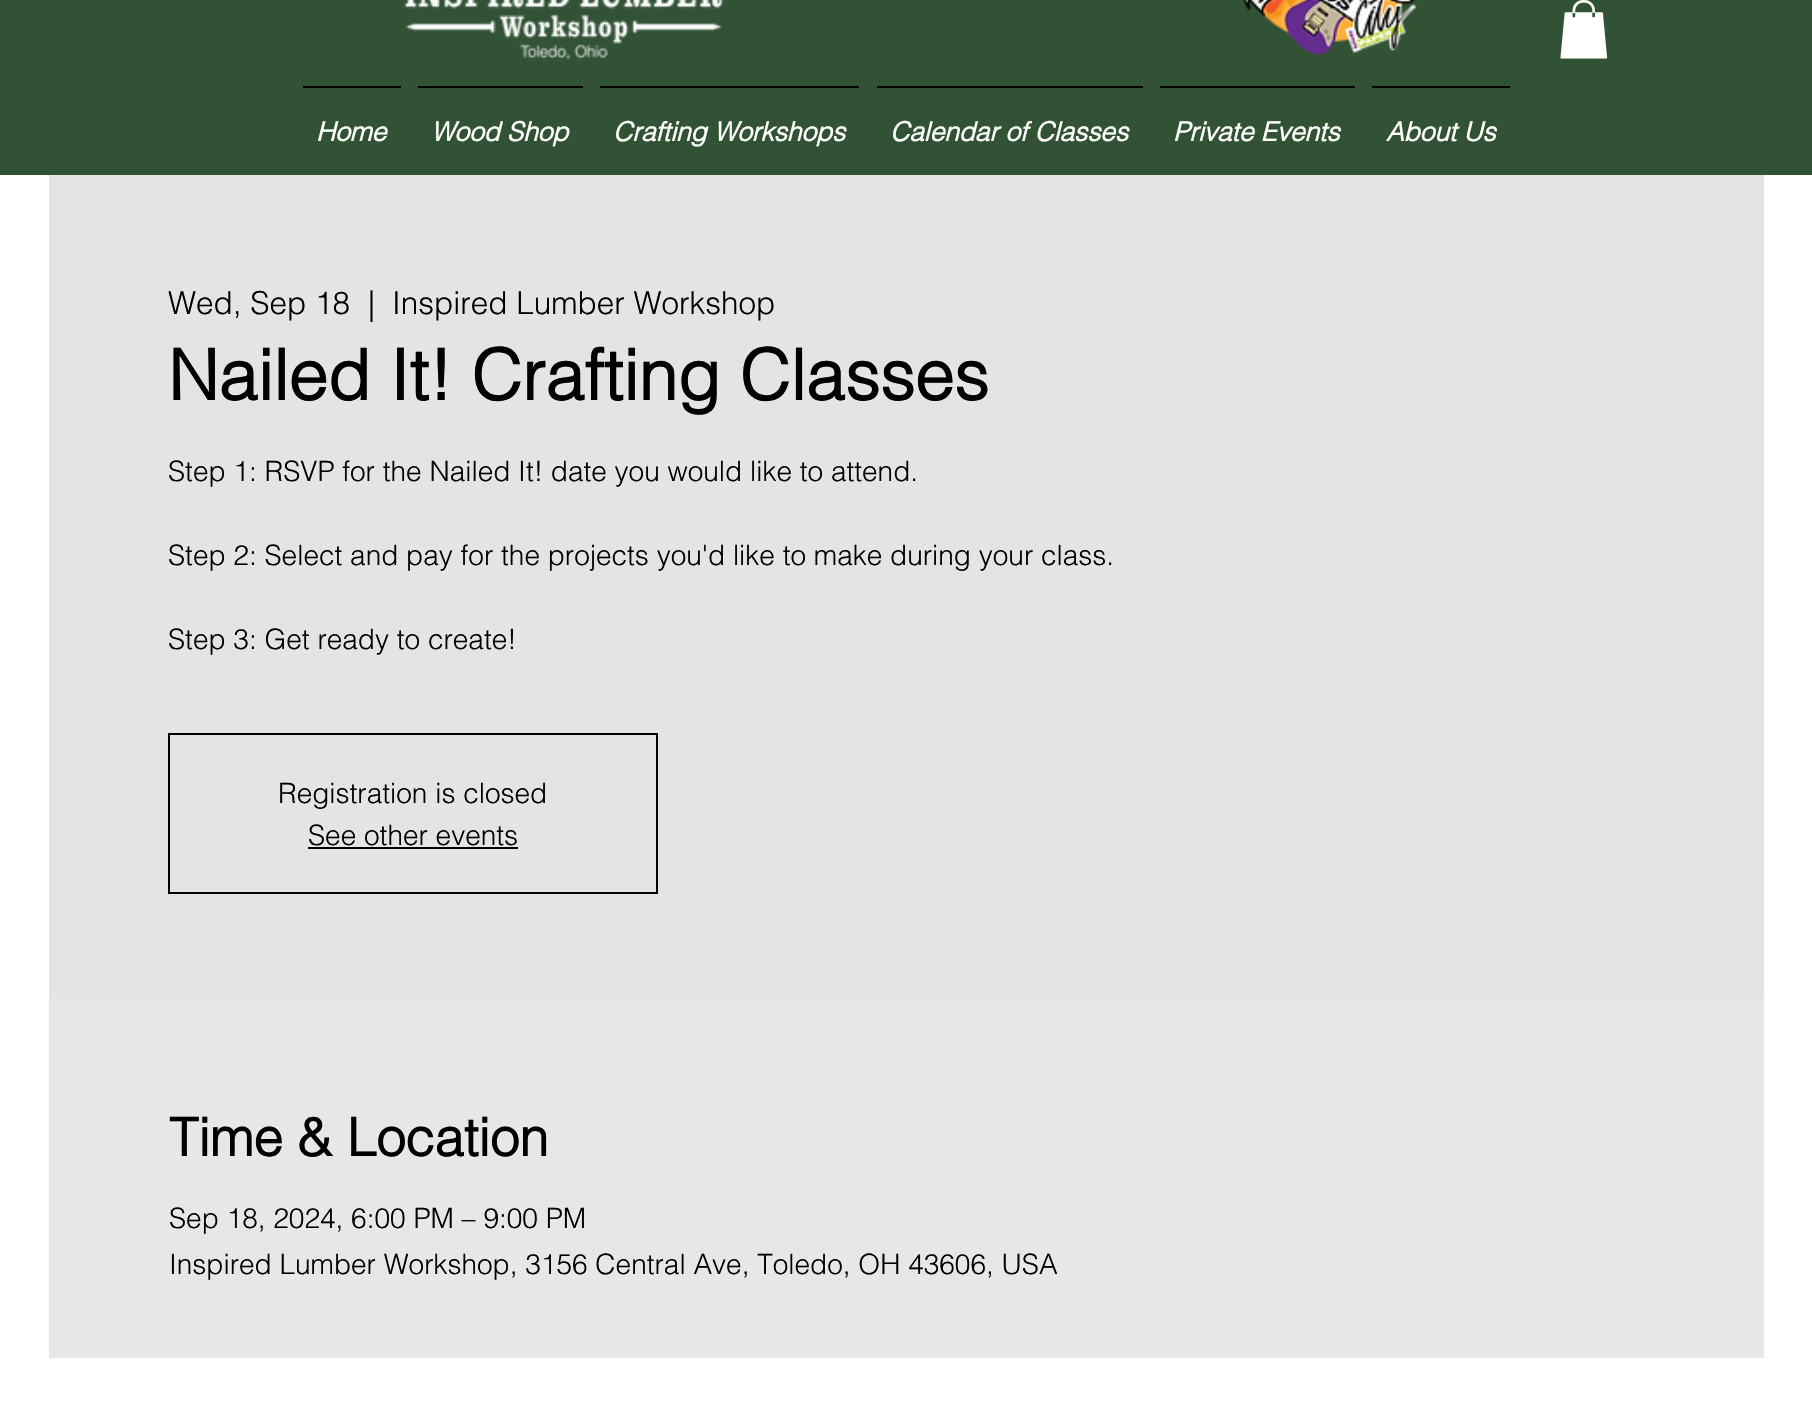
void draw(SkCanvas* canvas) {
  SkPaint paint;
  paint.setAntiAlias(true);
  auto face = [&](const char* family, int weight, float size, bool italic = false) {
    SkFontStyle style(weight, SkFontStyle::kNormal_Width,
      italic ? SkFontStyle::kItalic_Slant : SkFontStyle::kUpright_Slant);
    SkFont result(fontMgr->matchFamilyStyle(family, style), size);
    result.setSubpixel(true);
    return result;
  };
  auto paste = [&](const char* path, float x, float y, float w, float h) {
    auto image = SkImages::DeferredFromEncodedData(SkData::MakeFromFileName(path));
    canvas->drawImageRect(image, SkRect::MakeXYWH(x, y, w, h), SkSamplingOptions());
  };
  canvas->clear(0xffffffff);
  paint.setColor(0xff325235);
  canvas->drawRect(SkRect::MakeXYWH(0, 0, 1812, 175), paint);
  paste("img/1.png", 404, 0, 320, 60);
  paste("img/2.png", 1242, 0, 175, 56);
  paste("img/3.png", 1560, 0, 48, 59);
  {
    const struct { float x, y, w, h; SkColor color; } items[] = {
      {303, 86, 98, 2, 0xff000000},
      {418, 86, 165, 2, 0xff000000},
      {600, 86, 259, 2, 0xff000000},
      {877, 86, 266, 2, 0xff000000},
      {1160, 86, 195, 2, 0xff000000},
      {1372, 86, 138, 2, 0xff000000},
      {49, 175, 1715, 824, 0xffe5e4e4},
    };
    for (auto [x, y, w, h, color] : items) {
      paint.setColor(color);
      canvas->drawRect(SkRect::MakeXYWH(x, y, w, h), paint);
    }
  }
  paint.setStroke(true);
  paint.setStrokeWidth(2);
  paint.setColor(0xff000000);
  canvas->drawRect(SkRect::MakeXYWH(169, 734, 488, 159), paint);
  paint.setStroke(false);
  canvas->drawRect(SkRect::MakeXYWH(308, 847, 210, 2), paint);
  paint.setColor(0xffe8e6e6);
  canvas->drawRect(SkRect::MakeXYWH(49, 999, 1715, 359), paint);
  auto f0 = face("helvetica", 700, 26.25f, true);
  paint.setColor(0xfffffffe);
  {
    const struct { const char* s; float x, y; } items[] = {
      {"Home", 316, 141},
      {"Wood Shop", 431, 141},
      {"Crafting Workshops", 613, 141},
      {"Calendar of Classes", 890, 141},
      {"Private Events", 1173, 141},
      {"About Us", 1386, 141},
    };
    for (auto [s, x, y] : items) {
      canvas->drawString(s, x, y, f0, paint);
    }
  }
  auto f1 = face("helvetica", 300, 31.5f);
  paint.setColor(0xff000000);
  {
    const struct { const char* s; float x, y; } items[] = {
      {"Wed, Sep 18", 168, 314},
      {"|", 368, 314},
      {"Inspired Lumber Workshop", 392, 314},
    };
    for (auto [s, x, y] : items) {
      canvas->drawString(s, x, y, f1, paint);
    }
  }
  auto f2 = face("helvetica", 700, 70);
  canvas->drawString("Nailed It! Crafting Classes", 168, 400, f2, paint);
  auto f3 = face("helvetica", 300, 28);
  {
    const struct { const char* s; float x, y; } items[] = {
      {"Step 1: RSVP for the Nailed It! date you would like to attend.", 168, 481},
      {"Step 2: Select and pay for the projects you'd like to make during your class.", 168, 565},
      {"Step 3: Get ready to create!", 168, 649},
      {"Registration is closed", 278, 803},
      {"See other events", 308, 845},
    };
    for (auto [s, x, y] : items) {
      canvas->drawString(s, x, y, f3, paint);
    }
  }
  auto f4 = face("helvetica", 700, 52.5f);
  canvas->drawString("Time & Location", 169, 1156, f4, paint);
  canvas->drawString("Sep 18, 2024, 6:00 PM – 9:00 PM", 169, 1228, f3, paint);
  canvas->drawString("Inspired Lumber Workshop, 3156 Central Ave, Toledo, OH 43606, USA", 169, 1274, f3, paint);
}
